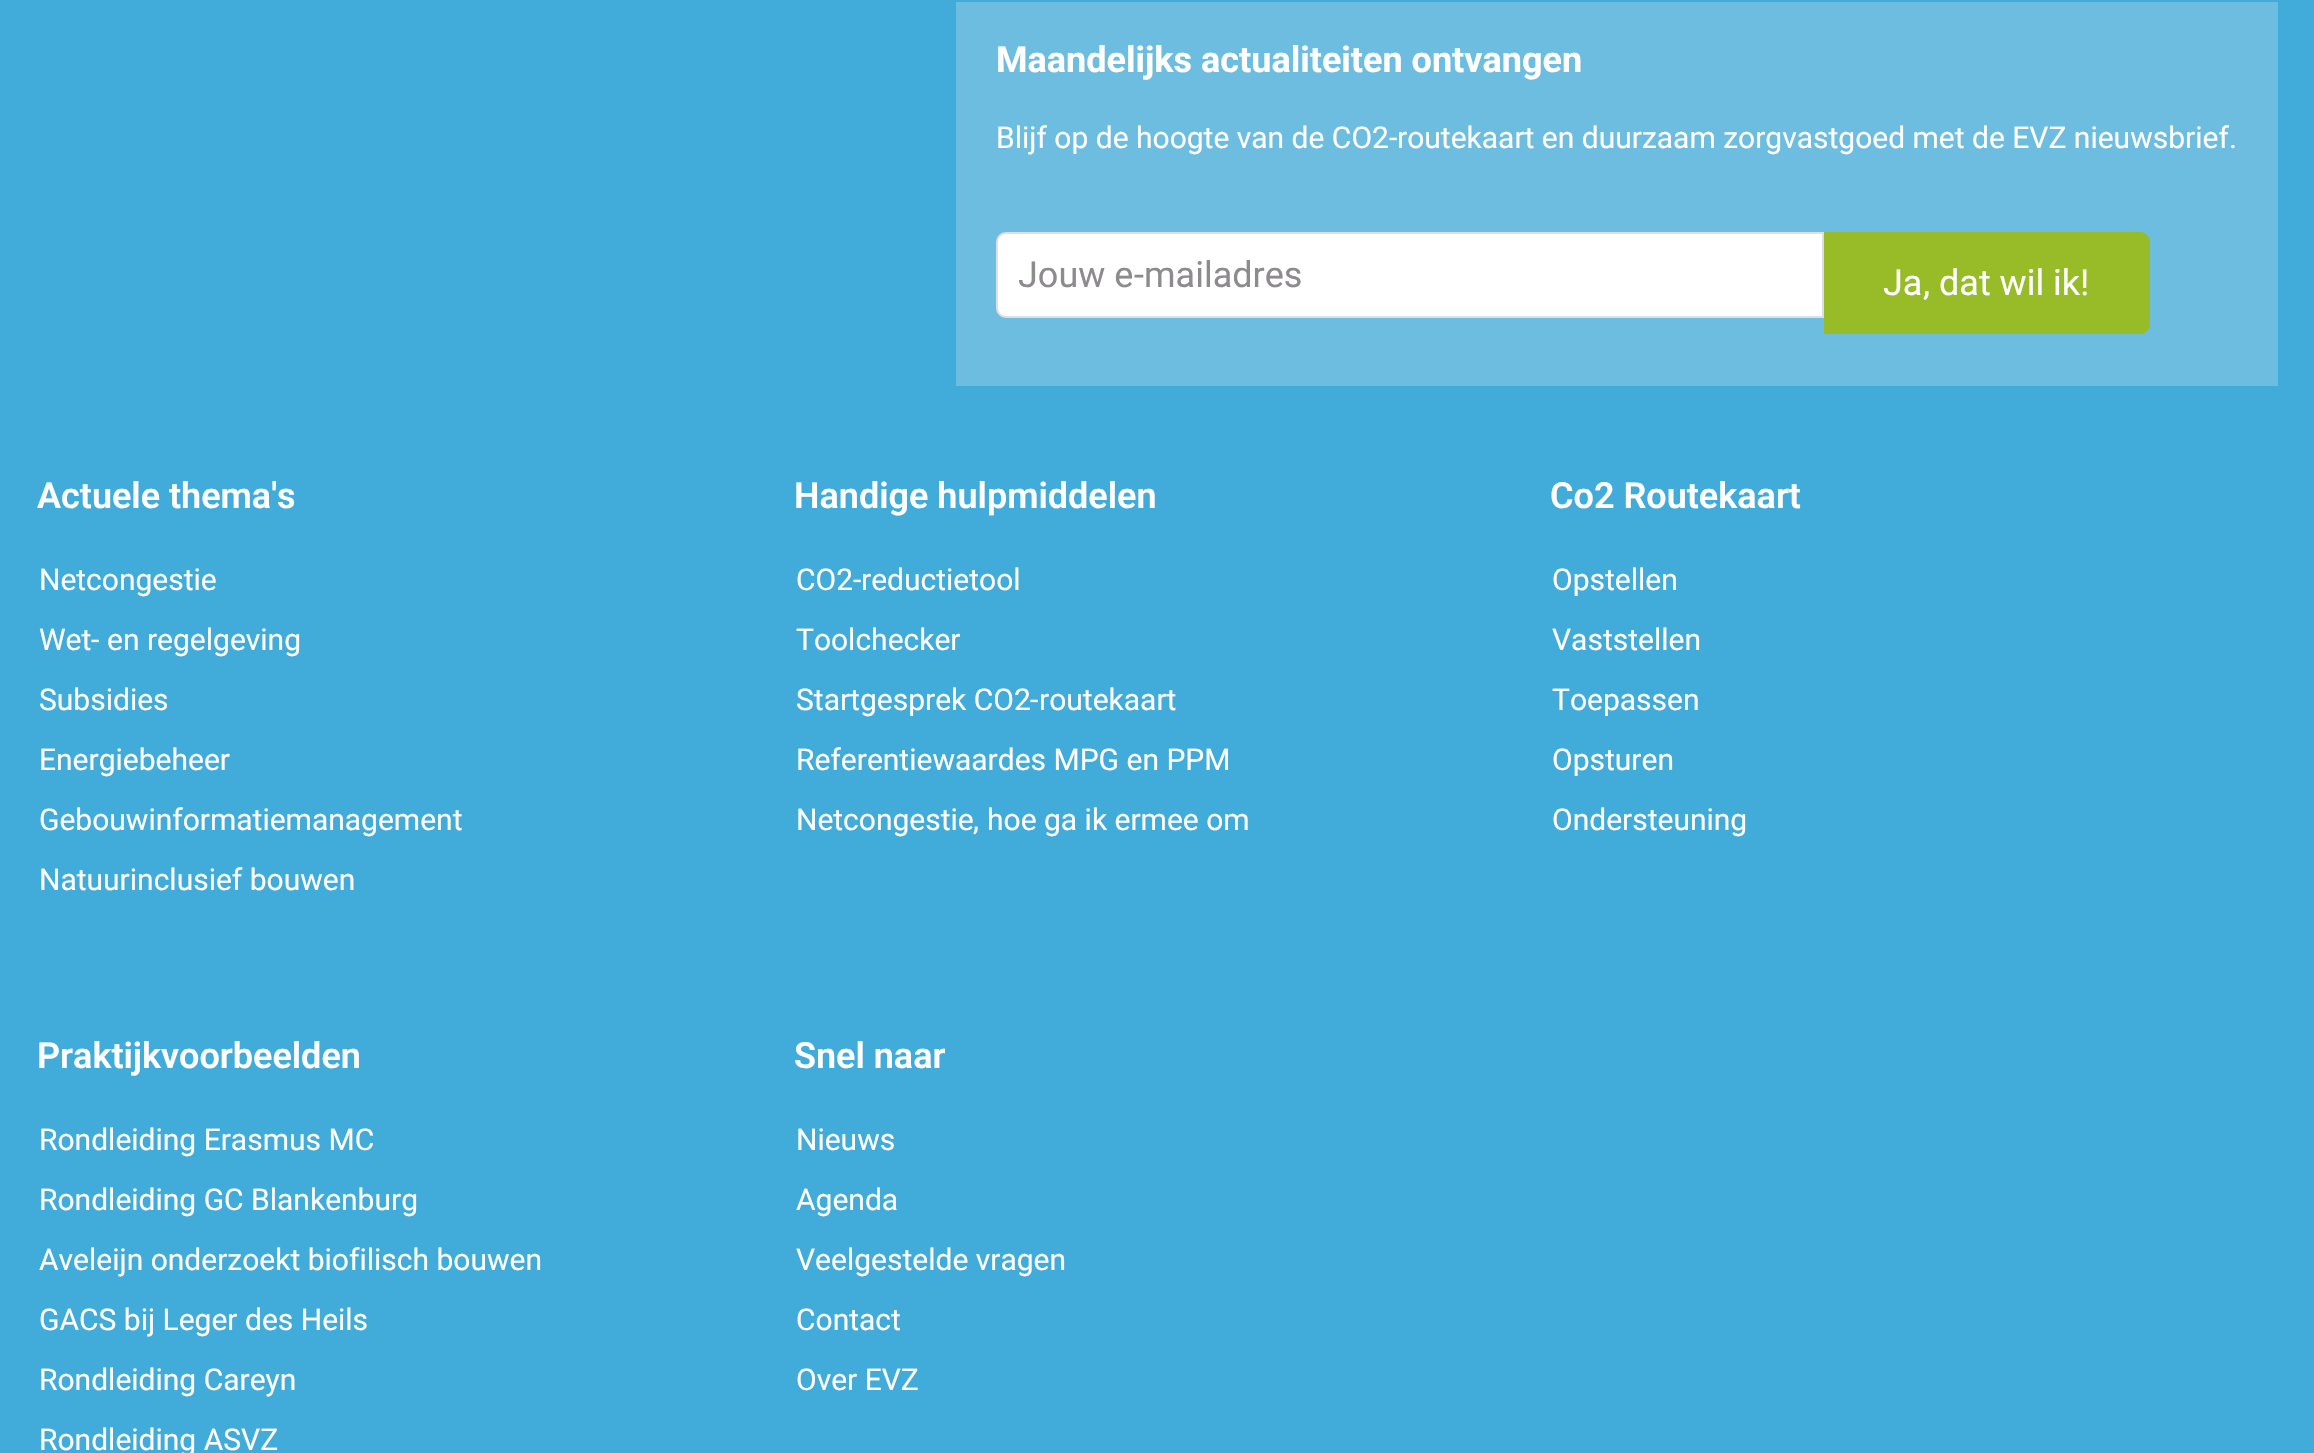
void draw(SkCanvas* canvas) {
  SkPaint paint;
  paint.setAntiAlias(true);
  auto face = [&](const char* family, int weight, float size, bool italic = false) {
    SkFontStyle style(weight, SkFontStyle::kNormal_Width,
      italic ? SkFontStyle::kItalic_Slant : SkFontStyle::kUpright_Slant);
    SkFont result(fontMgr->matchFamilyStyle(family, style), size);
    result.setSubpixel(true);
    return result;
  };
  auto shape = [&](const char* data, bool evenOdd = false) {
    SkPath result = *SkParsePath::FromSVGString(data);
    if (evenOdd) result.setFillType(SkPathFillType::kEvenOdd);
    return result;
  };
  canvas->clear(0xff41abda);
  paint.setColor(0xff6cbddf);
  canvas->drawRect(SkRect::MakeXYWH(956, 2, 1322, 384), paint);
  paint.setColor(0xffffffff);
  canvas->drawPath(shape("M1006 233H1823V317H1006C1001 317 997 313 997 308V242C997 237 1001 233 1006 233Z"), paint);
  paint.setStroke(true);
  paint.setStrokeWidth(2);
  paint.setColor(0xffdedee5);
  canvas->drawPath(shape("M1006 233H1823V317H1006C1001 317 997 313 997 308V242C997 237 1001 233 1006 233Z"), paint);
  paint.setStroke(false);
  paint.setColor(0xff98bc28);
  canvas->drawPath(shape("M1824 232H2140C2145.5 232 2150 236.5 2150 242V324C2150 329.5 2145.5 334 2140 334H1824Z"), paint);
  auto f0 = face("Roboto", 700, 36);
  paint.setColor(0xffffffff);
  canvas->drawString("Maandelijks actualiteiten ontvangen", 996, 72, f0, paint);
  auto f1 = face("Roboto", 400, 30);
  canvas->drawString("Blijf op de hoogte van de CO2", 996, 148, f1, paint);
  auto f2 = face("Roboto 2", 400, 30);
  canvas->drawString("-", 1389, 148, f2, paint);
  canvas->drawString("routekaart en duurzaam zorgvastgoed met de EVZ nieuwsbrief", 1397, 148, f1, paint);
  canvas->drawString(".", 2229, 148, f2, paint);
  auto f3 = face("Roboto", 400, 36);
  paint.setColor(0xff8d8b8d);
  canvas->drawString("Jouw e", 1018, 287, f3, paint);
  auto f4 = face("Roboto 2", 400, 36);
  canvas->drawString("-", 1134, 287, f4, paint);
  canvas->drawString("mailadres", 1144, 287, f3, paint);
  paint.setColor(0xffffffff);
  canvas->drawString("Ja", 1883, 295, f3, paint);
  canvas->drawString(",", 1923, 295, f4, paint);
  canvas->drawString("dat wil ik", 1939, 295, f3, paint);
  canvas->drawString("!", 2080, 295, f4, paint);
  auto f5 = face("Roboto", 600, 36);
  canvas->drawString("Actuele thema's", 37, 508, f5, paint);
  canvas->drawString("Netcongestie", 39, 590, f1, paint);
  canvas->drawString("Wet", 39, 650, f1, paint);
  canvas->drawString("-", 91, 650, f2, paint);
  {
    const struct { const char* s; float x, y; } items[] = {
      {"en regelgeving", 107, 650},
      {"Subsidies", 39, 710},
      {"Energiebeheer", 39, 770},
      {"Gebouwinformatiemanagement", 39, 830},
      {"Natuurinclusief bouwen", 39, 890},
    };
    for (auto [s, x, y] : items) {
      canvas->drawString(s, x, y, f1, paint);
    }
  }
  canvas->drawString("Handige hulpmiddelen", 794, 508, f5, paint);
  canvas->drawString("CO2", 796, 590, f1, paint);
  canvas->drawString("-", 853, 590, f2, paint);
  {
    const struct { const char* s; float x, y; } items[] = {
      {"reductietool", 861, 590},
      {"Toolchecker", 796, 650},
      {"Startgesprek CO2", 796, 710},
    };
    for (auto [s, x, y] : items) {
      canvas->drawString(s, x, y, f1, paint);
    }
  }
  canvas->drawString("-", 1030, 710, f2, paint);
  {
    const struct { const char* s; float x, y; } items[] = {
      {"routekaart", 1039, 710},
      {"Referentiewaardes MPG en PPM", 796, 770},
      {"Netcongestie", 796, 830},
    };
    for (auto [s, x, y] : items) {
      canvas->drawString(s, x, y, f1, paint);
    }
  }
  canvas->drawString(",", 973, 830, f2, paint);
  canvas->drawString("hoe ga ik ermee om", 987, 830, f1, paint);
  canvas->drawString("Co2 Routekaart", 1550, 508, f5, paint);
  {
    const struct { const char* s; float x, y; } items[] = {
      {"Opstellen", 1552, 590},
      {"Vaststellen", 1552, 650},
      {"Toepassen", 1552, 710},
      {"Opsturen", 1552, 770},
      {"Ondersteuning", 1552, 830},
    };
    for (auto [s, x, y] : items) {
      canvas->drawString(s, x, y, f1, paint);
    }
  }
  canvas->drawString("Praktijkvoorbeelden", 37, 1068, f5, paint);
  {
    const struct { const char* s; float x, y; } items[] = {
      {"Rondleiding Erasmus MC", 39, 1150},
      {"Rondleiding GC Blankenburg", 39, 1210},
      {"Aveleijn onderzoekt biofilisch bouwen", 39, 1270},
      {"GACS bij Leger des Heils", 39, 1330},
      {"Rondleiding Careyn", 39, 1390},
      {"Rondleiding ASVZ", 39, 1450},
    };
    for (auto [s, x, y] : items) {
      canvas->drawString(s, x, y, f1, paint);
    }
  }
  canvas->drawString("Snel naar", 794, 1068, f5, paint);
  {
    const struct { const char* s; float x, y; } items[] = {
      {"Nieuws", 796, 1150},
      {"Agenda", 796, 1210},
      {"Veelgestelde vragen", 796, 1270},
      {"Contact", 796, 1330},
      {"Over EVZ", 796, 1390},
    };
    for (auto [s, x, y] : items) {
      canvas->drawString(s, x, y, f1, paint);
    }
  }
}
